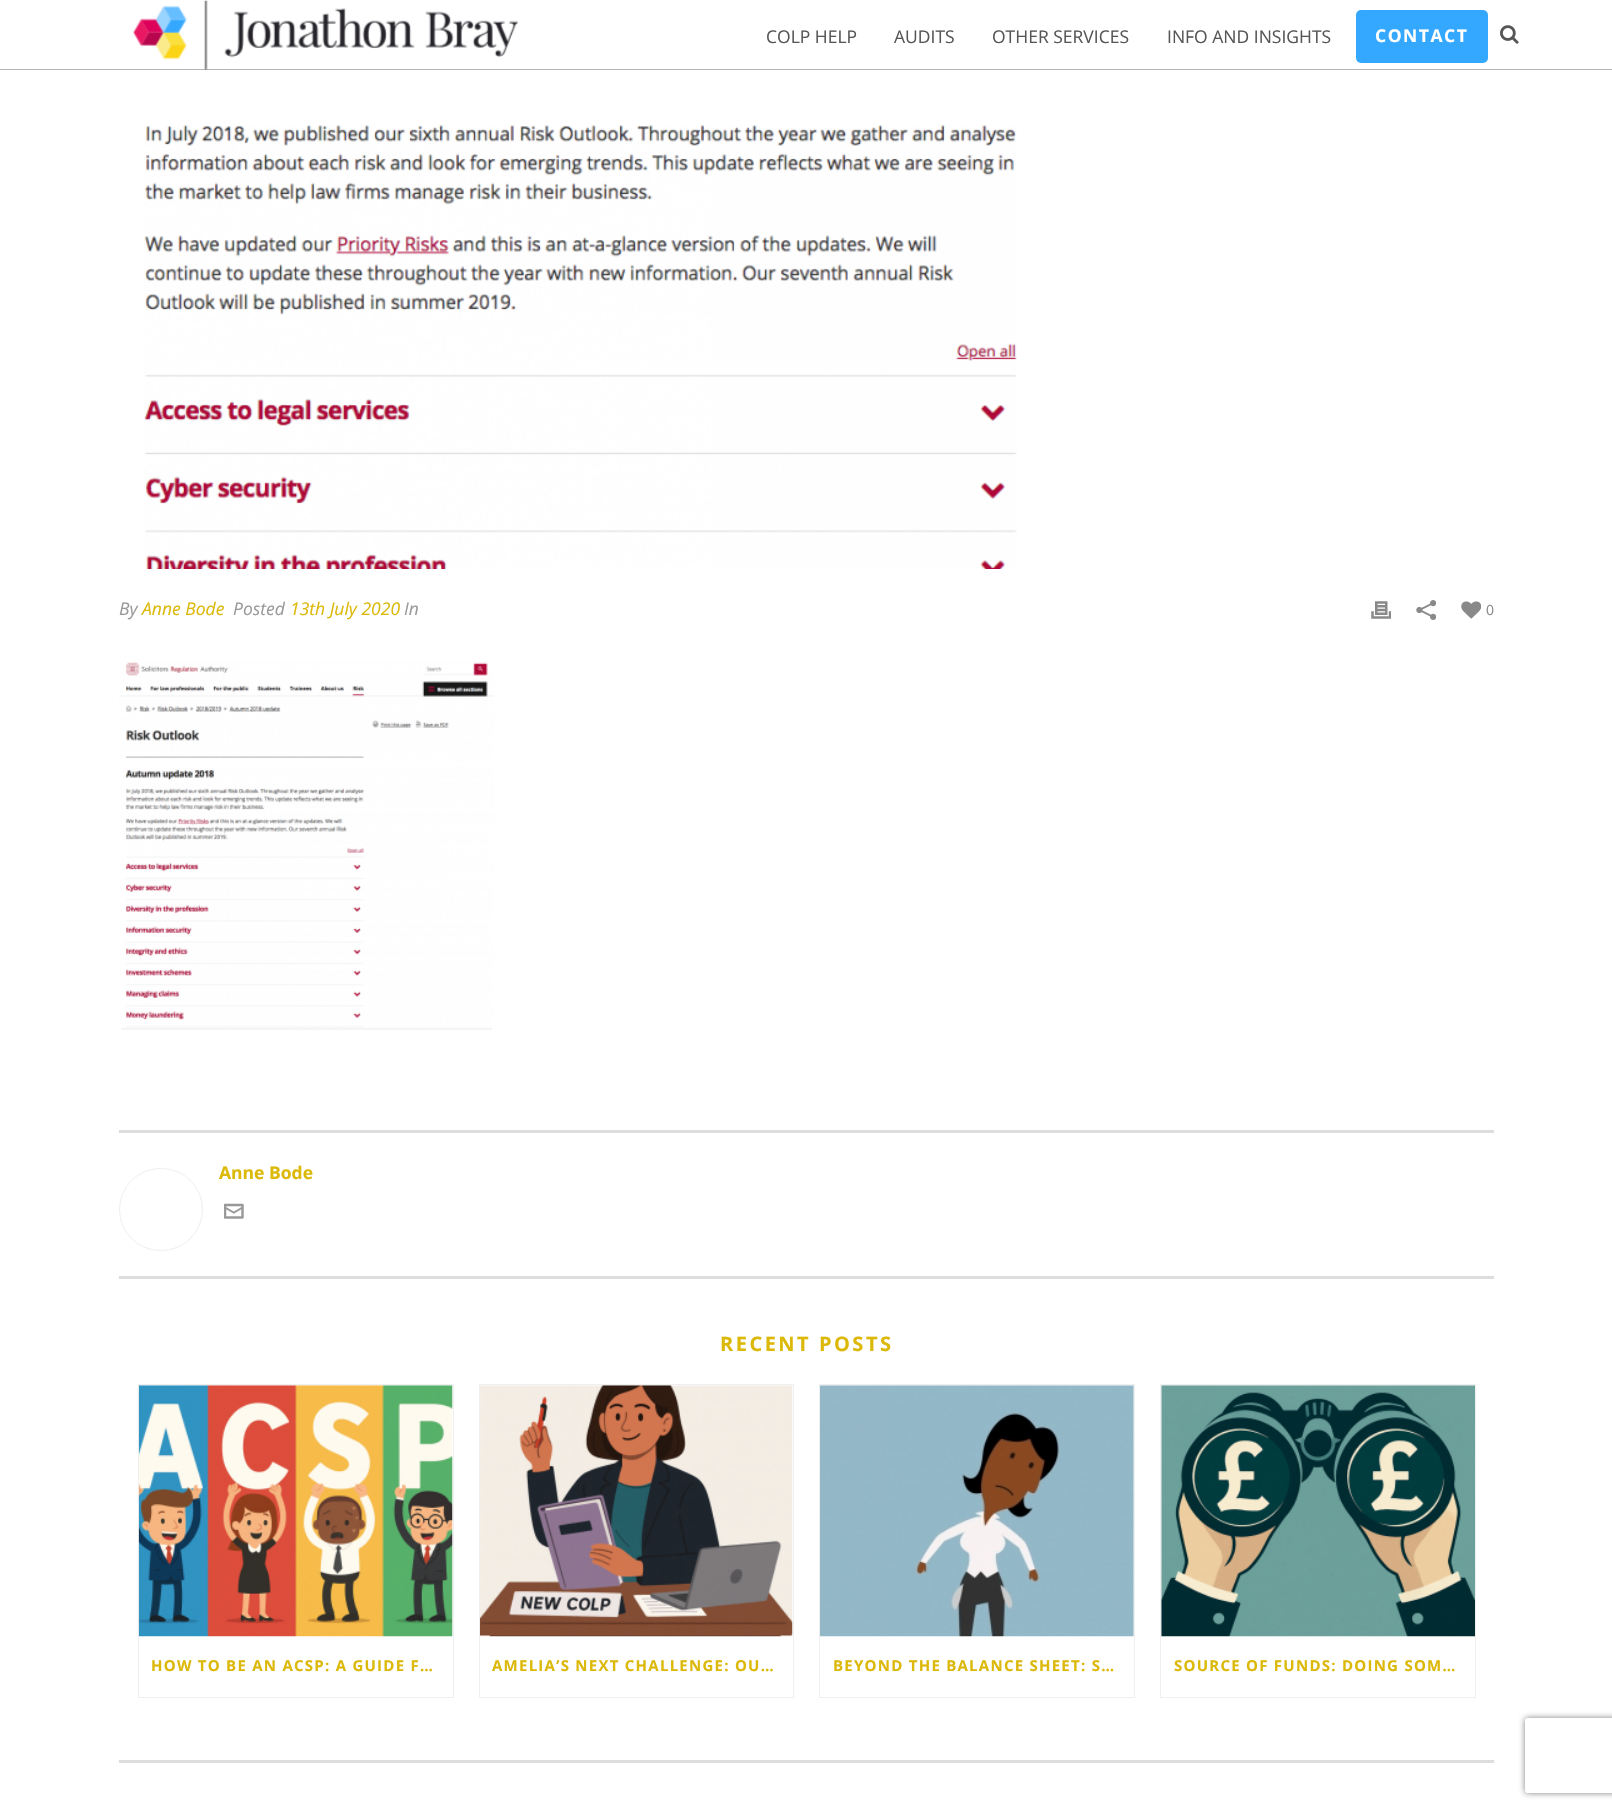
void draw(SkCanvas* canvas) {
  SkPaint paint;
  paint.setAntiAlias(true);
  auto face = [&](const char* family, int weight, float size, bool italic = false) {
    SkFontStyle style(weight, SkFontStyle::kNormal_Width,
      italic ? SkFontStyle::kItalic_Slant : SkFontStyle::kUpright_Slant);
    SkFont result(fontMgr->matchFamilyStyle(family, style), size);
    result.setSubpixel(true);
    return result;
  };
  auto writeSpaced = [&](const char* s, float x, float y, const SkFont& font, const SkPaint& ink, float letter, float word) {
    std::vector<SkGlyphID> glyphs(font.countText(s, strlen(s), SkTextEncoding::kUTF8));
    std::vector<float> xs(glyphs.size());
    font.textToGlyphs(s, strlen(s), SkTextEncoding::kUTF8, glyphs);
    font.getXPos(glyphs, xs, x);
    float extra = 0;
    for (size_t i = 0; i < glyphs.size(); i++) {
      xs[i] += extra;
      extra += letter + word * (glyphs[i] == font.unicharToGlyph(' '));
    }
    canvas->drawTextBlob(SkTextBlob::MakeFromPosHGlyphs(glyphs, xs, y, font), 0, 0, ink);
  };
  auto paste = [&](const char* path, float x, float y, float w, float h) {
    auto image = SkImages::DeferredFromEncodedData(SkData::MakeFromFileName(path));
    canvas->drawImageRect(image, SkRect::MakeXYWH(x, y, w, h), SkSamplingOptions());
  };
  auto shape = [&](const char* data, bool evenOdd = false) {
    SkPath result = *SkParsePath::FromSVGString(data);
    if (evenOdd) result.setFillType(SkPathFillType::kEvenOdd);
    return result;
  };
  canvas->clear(0xffffffff);
  paint.setColor(0xffb5b5b5);
  canvas->drawRect(SkRect::MakeXYWH(0, 69, 1612, 1), paint);
  paste("img/1.png", 133, 0, 385, 70);
  paint.setColor(0xff34a8ff);
  canvas->drawRoundRect(SkRect::MakeXYWH(1356, 10, 132, 53), 5, 5, paint);
  paste("img/2.png", 1500, 25, 19, 19);
  paste("img/3.png", 144, 125, 873, 444);
  paste("img/4.png", 1371, 601, 20, 18);
  paste("img/5.png", 1416, 600, 20, 20);
  paste("img/6.png", 1461, 601, 20, 18);
  paste("img/7.png", 119, 661, 375, 369);
  paint.setColor(0xffdddddd);
  canvas->drawRect(SkRect::MakeXYWH(119, 1130, 1375, 3), paint);
  canvas->drawRect(SkRect::MakeXYWH(119, 1276, 1375, 3), paint);
  paint.setStroke(true);
  paint.setStrokeWidth(1);
  paint.setColor(0xffeeeeee);
  canvas->drawRoundRect(SkRect::MakeXYWH(119.5f, 1168.5f, 83, 82), 41, 41, paint);
  paste("img/8.png", 224, 1203, 20, 16);
  paint.setStroke(false);
  paint.setColor(0xffdddddd);
  canvas->drawRect(SkRect::MakeXYWH(119, 1760, 1375, 3), paint);
  paint.setStroke(true);
  paint.setColor(0xffefefef);
  canvas->drawRect(SkRect::MakeXYWH(138.5f, 1384.5f, 315, 313), paint);
  paste("img/9.png", 138, 1385, 315, 252);
  canvas->drawRect(SkRect::MakeXYWH(479.5f, 1384.5f, 314, 313), paint);
  paste("img/10.png", 480, 1385, 313, 252);
  canvas->drawRect(SkRect::MakeXYWH(819.5f, 1384.5f, 315, 313), paint);
  paste("img/11.png", 820, 1385, 314, 252);
  canvas->drawRect(SkRect::MakeXYWH(1160.5f, 1384.5f, 315, 313), paint);
  paste("img/12.png", 1161, 1385, 314, 252);
  canvas->save();
  canvas->clipPath(shape("M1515 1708H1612V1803H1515ZM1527.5 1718H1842.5C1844 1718 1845 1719 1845 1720.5V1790.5C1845 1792 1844 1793 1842.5 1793H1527.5C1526 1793 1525 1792 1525 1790.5V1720.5C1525 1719 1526 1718 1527.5 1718Z", true), true);
  paint.setStroke(false);
  paint.setColor(0xff808080);
  paint.setMaskFilter(SkMaskFilter::MakeBlur(kNormal_SkBlurStyle, 3));
  canvas->drawRoundRect(SkRect::MakeXYWH(1525, 1718, 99, 75), 2.5f, 2.5f, paint);
  paint.setMaskFilter(nullptr);
  canvas->restore();
  auto f0 = face("Open Sans", 400, 17.5f);
  paint.setColor(0xff565656);
  {
    const struct { const char* s; float x, y; } items[] = {
      {"COLP HELP", 766, 43},
      {"AUDITS", 894, 43},
      {"OTHER SERVICES", 992, 43},
      {"INFO AND INSIGHTS", 1167, 43},
    };
    for (auto [s, x, y] : items) {
      canvas->drawString(s, x, y, f0, paint);
    }
  }
  auto f1 = face("Open Sans", 700, 17.5f);
  paint.setColor(0xffffffff);
  writeSpaced("CONTACT", 1375, 42, f1, paint, 1.5f, 0);
  auto f2 = face("Open Sans", 400, 17.5f, true);
  paint.setColor(0xff999999);
  canvas->drawString("By", 119, 615, f2, paint);
  paint.setColor(0xffdcb808);
  canvas->drawString("Anne Bode", 142, 615, f2, paint);
  paint.setColor(0xff999999);
  canvas->drawString("Posted", 233, 615, f2, paint);
  paint.setColor(0xffdcb808);
  canvas->drawString("13th July 2020", 290, 615, f2, paint);
  paint.setColor(0xff999999);
  canvas->drawString("In", 404, 615, f2, paint);
  auto f3 = face("Open Sans", 400, 14);
  paint.setColor(0xff898989);
  canvas->drawString("0", 1486, 615, f3, paint);
  paint.setColor(0xffdcb808);
  canvas->drawString("Anne Bode", 219, 1179, f1, paint);
  auto f4 = face("Open Sans", 700, 20);
  writeSpaced("RECENT POSTS", 720, 1351, f4, paint, 2.5f, 0);
  auto f5 = face("Open Sans", 700, 15);
  {
    const struct { const char* s; float x, y; } items[] = {
      {"HOW TO BE AN ACSP: A GUIDE F…", 151, 1671},
      {"AMELIA’S NEXT CHALLENGE: OU…", 492, 1671},
      {"BEYOND THE BALANCE SHEET: S…", 833, 1671},
      {"SOURCE OF FUNDS: DOING SOM…", 1174, 1671},
    };
    for (auto [s, x, y] : items) {
      writeSpaced(s, x, y, f5, paint, 1.25f, 0);
    }
  }
}
